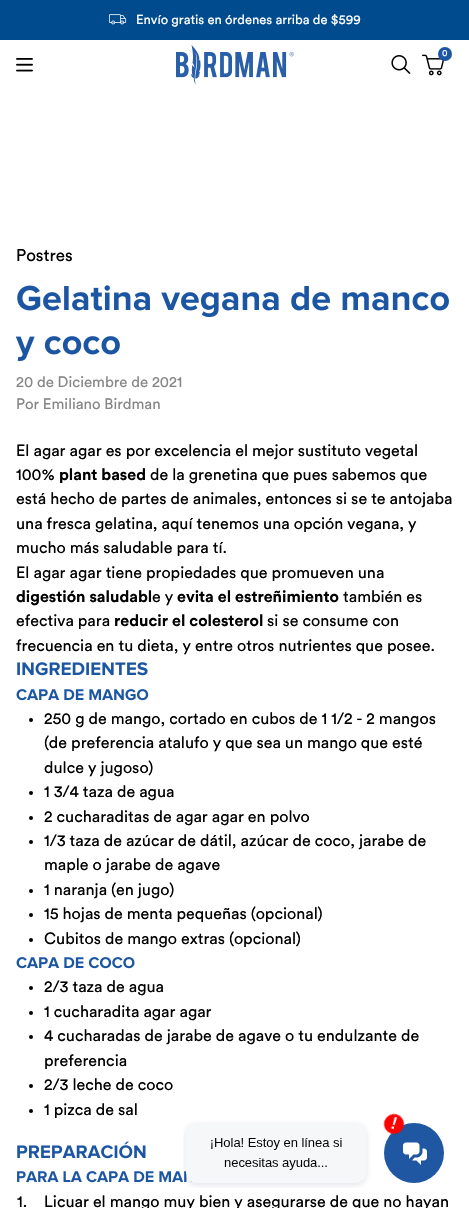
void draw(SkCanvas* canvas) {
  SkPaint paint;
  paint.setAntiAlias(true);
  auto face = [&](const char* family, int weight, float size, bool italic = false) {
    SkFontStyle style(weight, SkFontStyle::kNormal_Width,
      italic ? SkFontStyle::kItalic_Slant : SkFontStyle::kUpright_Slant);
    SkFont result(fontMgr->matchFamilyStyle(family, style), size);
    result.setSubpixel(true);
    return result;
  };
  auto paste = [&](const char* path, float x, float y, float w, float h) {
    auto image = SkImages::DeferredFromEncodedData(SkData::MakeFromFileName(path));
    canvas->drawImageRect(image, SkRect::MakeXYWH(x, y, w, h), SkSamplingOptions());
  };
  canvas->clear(0xffffffff);
  paint.setColor(0xff004b8d);
  canvas->drawRect(SkRect::MakeXYWH(0, 0, 469, 40), paint);
  paste("img/1.png", 108, 14, 19, 11);
  paste("img/2.png", 176, 45, 118, 40);
  paste("img/3.png", 422, 54, 22, 22);
  paint.setColor(0xff1c56a3);
  canvas->drawCircle(445, 54, 7, paint);
  paste("img/4.png", 391, 55, 20, 19);
  paste("img/5.png", 16, 58, 17, 14);
  paste("img/6.png", 17, 285, 432, 33);
  paste("img/7.png", 15, 336, 105, 26);
  paste("img/8.png", 17, 662, 131, 14);
  paste("img/9.png", 16, 689, 133, 12);
  paint.setColor(0xff000000);
  canvas->drawCircle(31, 720, 2, paint);
  canvas->drawCircle(31, 793, 2, paint);
  canvas->drawCircle(31, 818, 2, paint);
  canvas->drawCircle(31, 842, 2, paint);
  canvas->drawCircle(31, 891, 2, paint);
  canvas->drawCircle(31, 915, 2, paint);
  canvas->drawCircle(31, 940, 2, paint);
  paste("img/10.png", 16, 957, 119, 12);
  canvas->drawCircle(31, 988, 2, paint);
  canvas->drawCircle(31, 1013, 2, paint);
  canvas->drawCircle(31, 1037, 2, paint);
  canvas->drawCircle(31, 1086, 2, paint);
  canvas->drawCircle(31, 1111, 2, paint);
  paste("img/11.png", 17, 1141, 129, 18);
  paste("img/12.png", 17, 1171, 175, 12);
  paste("img/13.png", 183, 1113, 261, 75);
  auto f0 = face("Circular", 400, 13);
  paint.setColor(0xffffffff);
  canvas->drawString("Envío gratis en órdenes arriba de $599", 136, 24, f0, paint);
  auto f1 = face("Circular", 400, 9);
  canvas->drawString("0", 442, 56, f1, paint);
  auto f2 = face("Circular", 400, 17);
  paint.setColor(0xff000000);
  canvas->drawString("Postres", 16, 261, f2, paint);
  auto f3 = face("Circular", 400, 15);
  paint.setColor(0xff868686);
  canvas->drawString("20 de Diciembre de 2021", 16, 387, f3, paint);
  canvas->drawString("Por Emiliano Birdman", 16, 409, f3, paint);
  auto f4 = face("Circular", 400, 16.1f);
  paint.setColor(0xff000000);
  canvas->drawString("El agar agar es por excelencia el mejor sustituto vegetal", 16, 456, f4, paint);
  canvas->drawString("100%", 16, 480, f4, paint);
  auto f5 = face("Circular", 700, 16.1f);
  canvas->drawString("plant based", 59, 480, f5, paint);
  {
    const struct { const char* s; float x, y; } items[] = {
      {"de la grenetina que pues sabemos que", 150, 480},
      {"está hecho de partes de animales, entonces si se te antojaba", 16, 504},
      {"una fresca gelatina, aquí tenemos una opción vegana, y", 16, 529},
      {"mucho más saludable para tí.", 16, 553},
      {"El agar agar tiene propiedades que promueven una", 16, 578},
    };
    for (auto [s, x, y] : items) {
      canvas->drawString(s, x, y, f4, paint);
    }
  }
  canvas->drawString("digestión saludabl", 16, 602, f5, paint);
  canvas->drawString("e y", 152, 602, f4, paint);
  canvas->drawString("evita el estreñimiento", 177, 602, f5, paint);
  canvas->drawString("también es", 343, 602, f4, paint);
  canvas->drawString("efectiva para", 16, 626, f4, paint);
  canvas->drawString("reducir el colesterol", 114, 626, f5, paint);
  {
    const struct { const char* s; float x, y; } items[] = {
      {"si se consume con", 267, 626},
      {"frecuencia en tu dieta, y entre otros nutrientes que posee.", 16, 651},
      {"250 g de mango, cortado en cubos de 1 1/2 - 2 mangos", 44, 724},
      {"(de preferencia atalufo y que sea un mango que esté", 44, 748},
      {"dulce y jugoso)", 44, 773},
      {"1 3/4 taza de agua", 44, 797},
      {"2 cucharaditas de agar agar en polvo", 44, 822},
      {"1/3 taza de azúcar de dátil, azúcar de coco, jarabe de", 44, 846},
      {"maple o jarabe de agave", 44, 870},
      {"1 naranja (en jugo)", 44, 895},
      {"15 hojas de menta pequeñas (opcional)", 44, 919},
      {"Cubitos de mango extras (opcional)", 44, 944},
      {"2/3 taza de agua", 44, 992},
      {"1 cucharadita agar agar", 44, 1017},
      {"4 cucharadas de jarabe de agave o tu endulzante de", 44, 1041},
      {"preferencia", 44, 1066},
      {"2/3 leche de coco", 44, 1090},
      {"1 pizca de sal", 44, 1115},
      {"1.", 17, 1207},
      {"Licuar el mango muy bien y asegurarse de que no hayan", 44, 1207},
    };
    for (auto [s, x, y] : items) {
      canvas->drawString(s, x, y, f4, paint);
    }
  }
}
